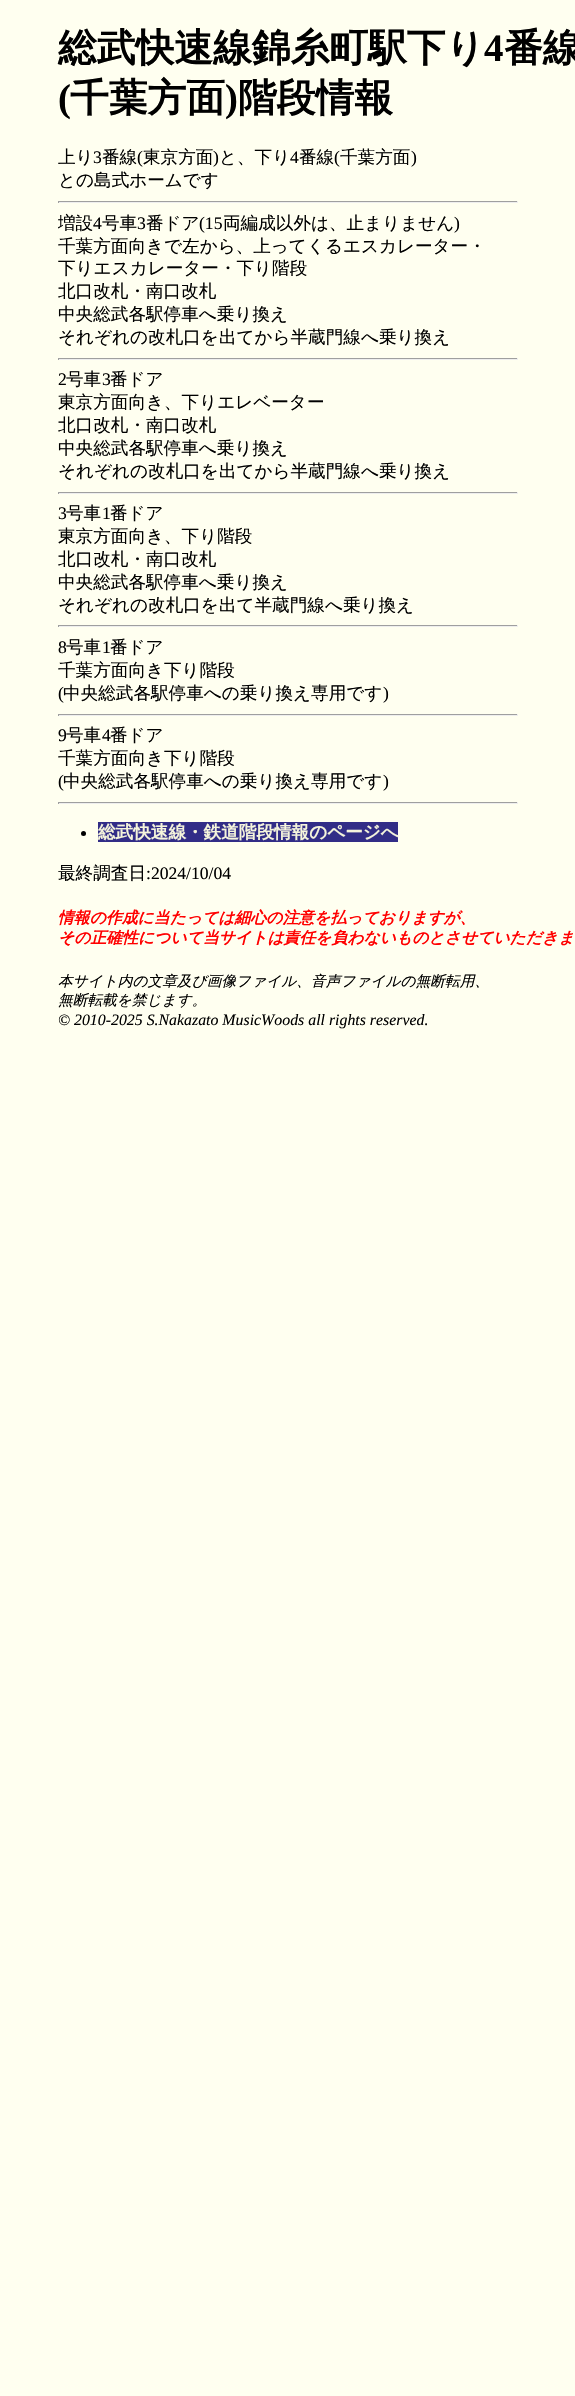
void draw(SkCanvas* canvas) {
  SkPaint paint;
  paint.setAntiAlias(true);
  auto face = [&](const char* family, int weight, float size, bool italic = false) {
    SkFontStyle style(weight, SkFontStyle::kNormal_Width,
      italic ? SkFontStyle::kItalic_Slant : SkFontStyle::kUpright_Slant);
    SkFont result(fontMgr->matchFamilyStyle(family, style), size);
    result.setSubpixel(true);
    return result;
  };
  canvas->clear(0xfffffff0);
  {
    const struct { float x, y, w, h; SkColor color; } items[] = {
      {58, 201, 460, 1, 0xff9f9f9f},
      {517, 201, 1, 2, 0xffeeeeee},
      {58, 202, 460, 1, 0xffeeeeee},
      {58, 201, 1, 2, 0xff9f9f9f},
      {58, 358, 460, 1, 0xff9f9f9f},
      {517, 358, 1, 2, 0xffeeeeee},
      {58, 359, 460, 1, 0xffeeeeee},
      {58, 358, 1, 2, 0xff9f9f9f},
      {58, 492, 460, 1, 0xff9f9f9f},
      {517, 492, 1, 2, 0xffeeeeee},
      {58, 493, 460, 1, 0xffeeeeee},
      {58, 492, 1, 2, 0xff9f9f9f},
      {58, 625, 460, 1, 0xff9f9f9f},
      {517, 625, 1, 2, 0xffeeeeee},
      {58, 626, 460, 1, 0xffeeeeee},
      {58, 625, 1, 2, 0xff9f9f9f},
      {58, 714, 460, 1, 0xff9f9f9f},
      {517, 714, 1, 2, 0xffeeeeee},
      {58, 715, 460, 1, 0xffeeeeee},
      {58, 714, 1, 2, 0xff9f9f9f},
      {58, 802, 460, 1, 0xff9f9f9f},
      {517, 802, 1, 2, 0xffeeeeee},
      {58, 803, 460, 1, 0xffeeeeee},
      {58, 802, 1, 2, 0xff9f9f9f},
    };
    for (auto [x, y, w, h, color] : items) {
      paint.setColor(color);
      canvas->drawRect(SkRect::MakeXYWH(x, y, w, h), paint);
    }
  }
  paint.setColor(0xff000000);
  canvas->drawCircle(83.5f, 833.5f, 2.5f, paint);
  paint.setColor(0xff322d87);
  canvas->drawRect(SkRect::MakeXYWH(98, 822, 300, 20), paint);
  auto f0 = face("WenQuanYi Zen Hei", 700, 38.75f);
  paint.setColor(0xff000000);
  canvas->drawString("総武快速線錦糸町駅下り", 58, 61, f0, paint);
  auto f1 = face("Liberation Serif", 700, 38.75f);
  canvas->drawString("4", 484, 61, f1, paint);
  canvas->drawString("番線", 504, 61, f0, paint);
  canvas->drawString("(", 58, 111, f1, paint);
  canvas->drawString("千葉方面", 70, 111, f0, paint);
  canvas->drawString(")", 225, 111, f1, paint);
  canvas->drawString("階段情報", 238, 111, f0, paint);
  auto f2 = face("WenQuanYi Zen Hei", 500, 17.6f);
  canvas->drawString("上り", 58, 163, f2, paint);
  auto f3 = face("Liberation Serif", 400, 17.6f);
  canvas->drawString("3", 93, 163, f3, paint);
  canvas->drawString("番線", 102, 163, f2, paint);
  canvas->drawString("(", 137, 163, f3, paint);
  canvas->drawString("東京方面", 143, 163, f2, paint);
  canvas->drawString(")", 213, 163, f3, paint);
  canvas->drawString("と、下り", 219, 163, f2, paint);
  canvas->drawString("4", 290, 163, f3, paint);
  canvas->drawString("番線", 299, 163, f2, paint);
  canvas->drawString("(", 334, 163, f3, paint);
  canvas->drawString("千葉方面", 340, 163, f2, paint);
  canvas->drawString(")", 411, 163, f3, paint);
  canvas->drawString("との島式ホームです", 58, 186, f2, paint);
  canvas->drawString("増設", 58, 229, f2, paint);
  canvas->drawString("4", 93, 229, f3, paint);
  canvas->drawString("号車", 102, 229, f2, paint);
  canvas->drawString("3", 137, 229, f3, paint);
  canvas->drawString("番ドア", 146, 229, f2, paint);
  canvas->drawString("(15", 199, 229, f3, paint);
  canvas->drawString("両編成以外は、止まりません", 223, 229, f2, paint);
  canvas->drawString(")", 454, 229, f3, paint);
  {
    const struct { const char* s; float x, y; } items[] = {
      {"千葉方面向きで左から、上ってくるエスカレーター・", 58, 252},
      {"下りエスカレーター・下り階段", 58, 274},
      {"北口改札・南口改札", 58, 297},
      {"中央総武各駅停車へ乗り換え", 58, 320},
      {"それぞれの改札口を出てから半蔵門線へ乗り換え", 58, 343},
    };
    for (auto [s, x, y] : items) {
      canvas->drawString(s, x, y, f2, paint);
    }
  }
  canvas->drawString("2", 58, 385, f3, paint);
  canvas->drawString("号車", 66, 385, f2, paint);
  canvas->drawString("3", 102, 385, f3, paint);
  {
    const struct { const char* s; float x, y; } items[] = {
      {"番ドア", 110, 385},
      {"東京方面向き、下りエレベーター", 58, 408},
      {"北口改札・南口改札", 58, 431},
      {"中央総武各駅停車へ乗り換え", 58, 454},
      {"それぞれの改札口を出てから半蔵門線へ乗り換え", 58, 477},
    };
    for (auto [s, x, y] : items) {
      canvas->drawString(s, x, y, f2, paint);
    }
  }
  canvas->drawString("3", 58, 519, f3, paint);
  canvas->drawString("号車", 66, 519, f2, paint);
  canvas->drawString("1", 102, 519, f3, paint);
  {
    const struct { const char* s; float x, y; } items[] = {
      {"番ドア", 110, 519},
      {"東京方面向き、下り階段", 58, 542},
      {"北口改札・南口改札", 58, 565},
      {"中央総武各駅停車へ乗り換え", 58, 588},
      {"それぞれの改札口を出て半蔵門線へ乗り換え", 58, 611},
    };
    for (auto [s, x, y] : items) {
      canvas->drawString(s, x, y, f2, paint);
    }
  }
  canvas->drawString("8", 58, 653, f3, paint);
  canvas->drawString("号車", 66, 653, f2, paint);
  canvas->drawString("1", 102, 653, f3, paint);
  canvas->drawString("番ドア", 110, 653, f2, paint);
  canvas->drawString("千葉方面向き下り階段", 58, 676, f2, paint);
  canvas->drawString("(", 58, 699, f3, paint);
  canvas->drawString("中央総武各駅停車への乗り換え専用です", 63, 699, f2, paint);
  canvas->drawString(")", 383, 699, f3, paint);
  canvas->drawString("9", 58, 741, f3, paint);
  canvas->drawString("号車", 66, 741, f2, paint);
  canvas->drawString("4", 102, 741, f3, paint);
  canvas->drawString("番ドア", 110, 741, f2, paint);
  canvas->drawString("千葉方面向き下り階段", 58, 764, f2, paint);
  canvas->drawString("(", 58, 787, f3, paint);
  canvas->drawString("中央総武各駅停車への乗り換え専用です", 63, 787, f2, paint);
  canvas->drawString(")", 383, 787, f3, paint);
  auto f4 = face("WenQuanYi Zen Hei", 700, 17.6f);
  paint.setColor(0xfff5f5dc);
  canvas->drawString("総武快速線・鉄道階段情報のページへ", 98, 838, f4, paint);
  paint.setColor(0xff000000);
  canvas->drawString("最終調査日", 58, 879, f2, paint);
  canvas->drawString(":2024/10/04", 146, 879, f3, paint);
  auto f5 = face("WenQuanYi Zen Hei", 700, 15.85f, true);
  paint.setColor(0xffff0000);
  canvas->drawString("情報の作成に当たっては細心の注意を払っておりますが、", 58, 923, f5, paint);
  canvas->drawString("その正確性について当サイトは責任を負わないものとさせていただきま", 58, 943, f5, paint);
  auto f6 = face("WenQuanYi Zen Hei", 500, 14.7f, true);
  paint.setColor(0xff000000);
  canvas->drawString("本サイト内の文章及び画像ファイル、音声ファイルの無断転用、", 58, 986, f6, paint);
  canvas->drawString("無断転載を禁じます。", 58, 1005, f6, paint);
  auto f7 = face("Liberation Serif", 400, 15.85f, true);
  canvas->drawString("© 2010-2025 S.Nakazato MusicWoods all rights reserved.", 58, 1025, f7, paint);
}
